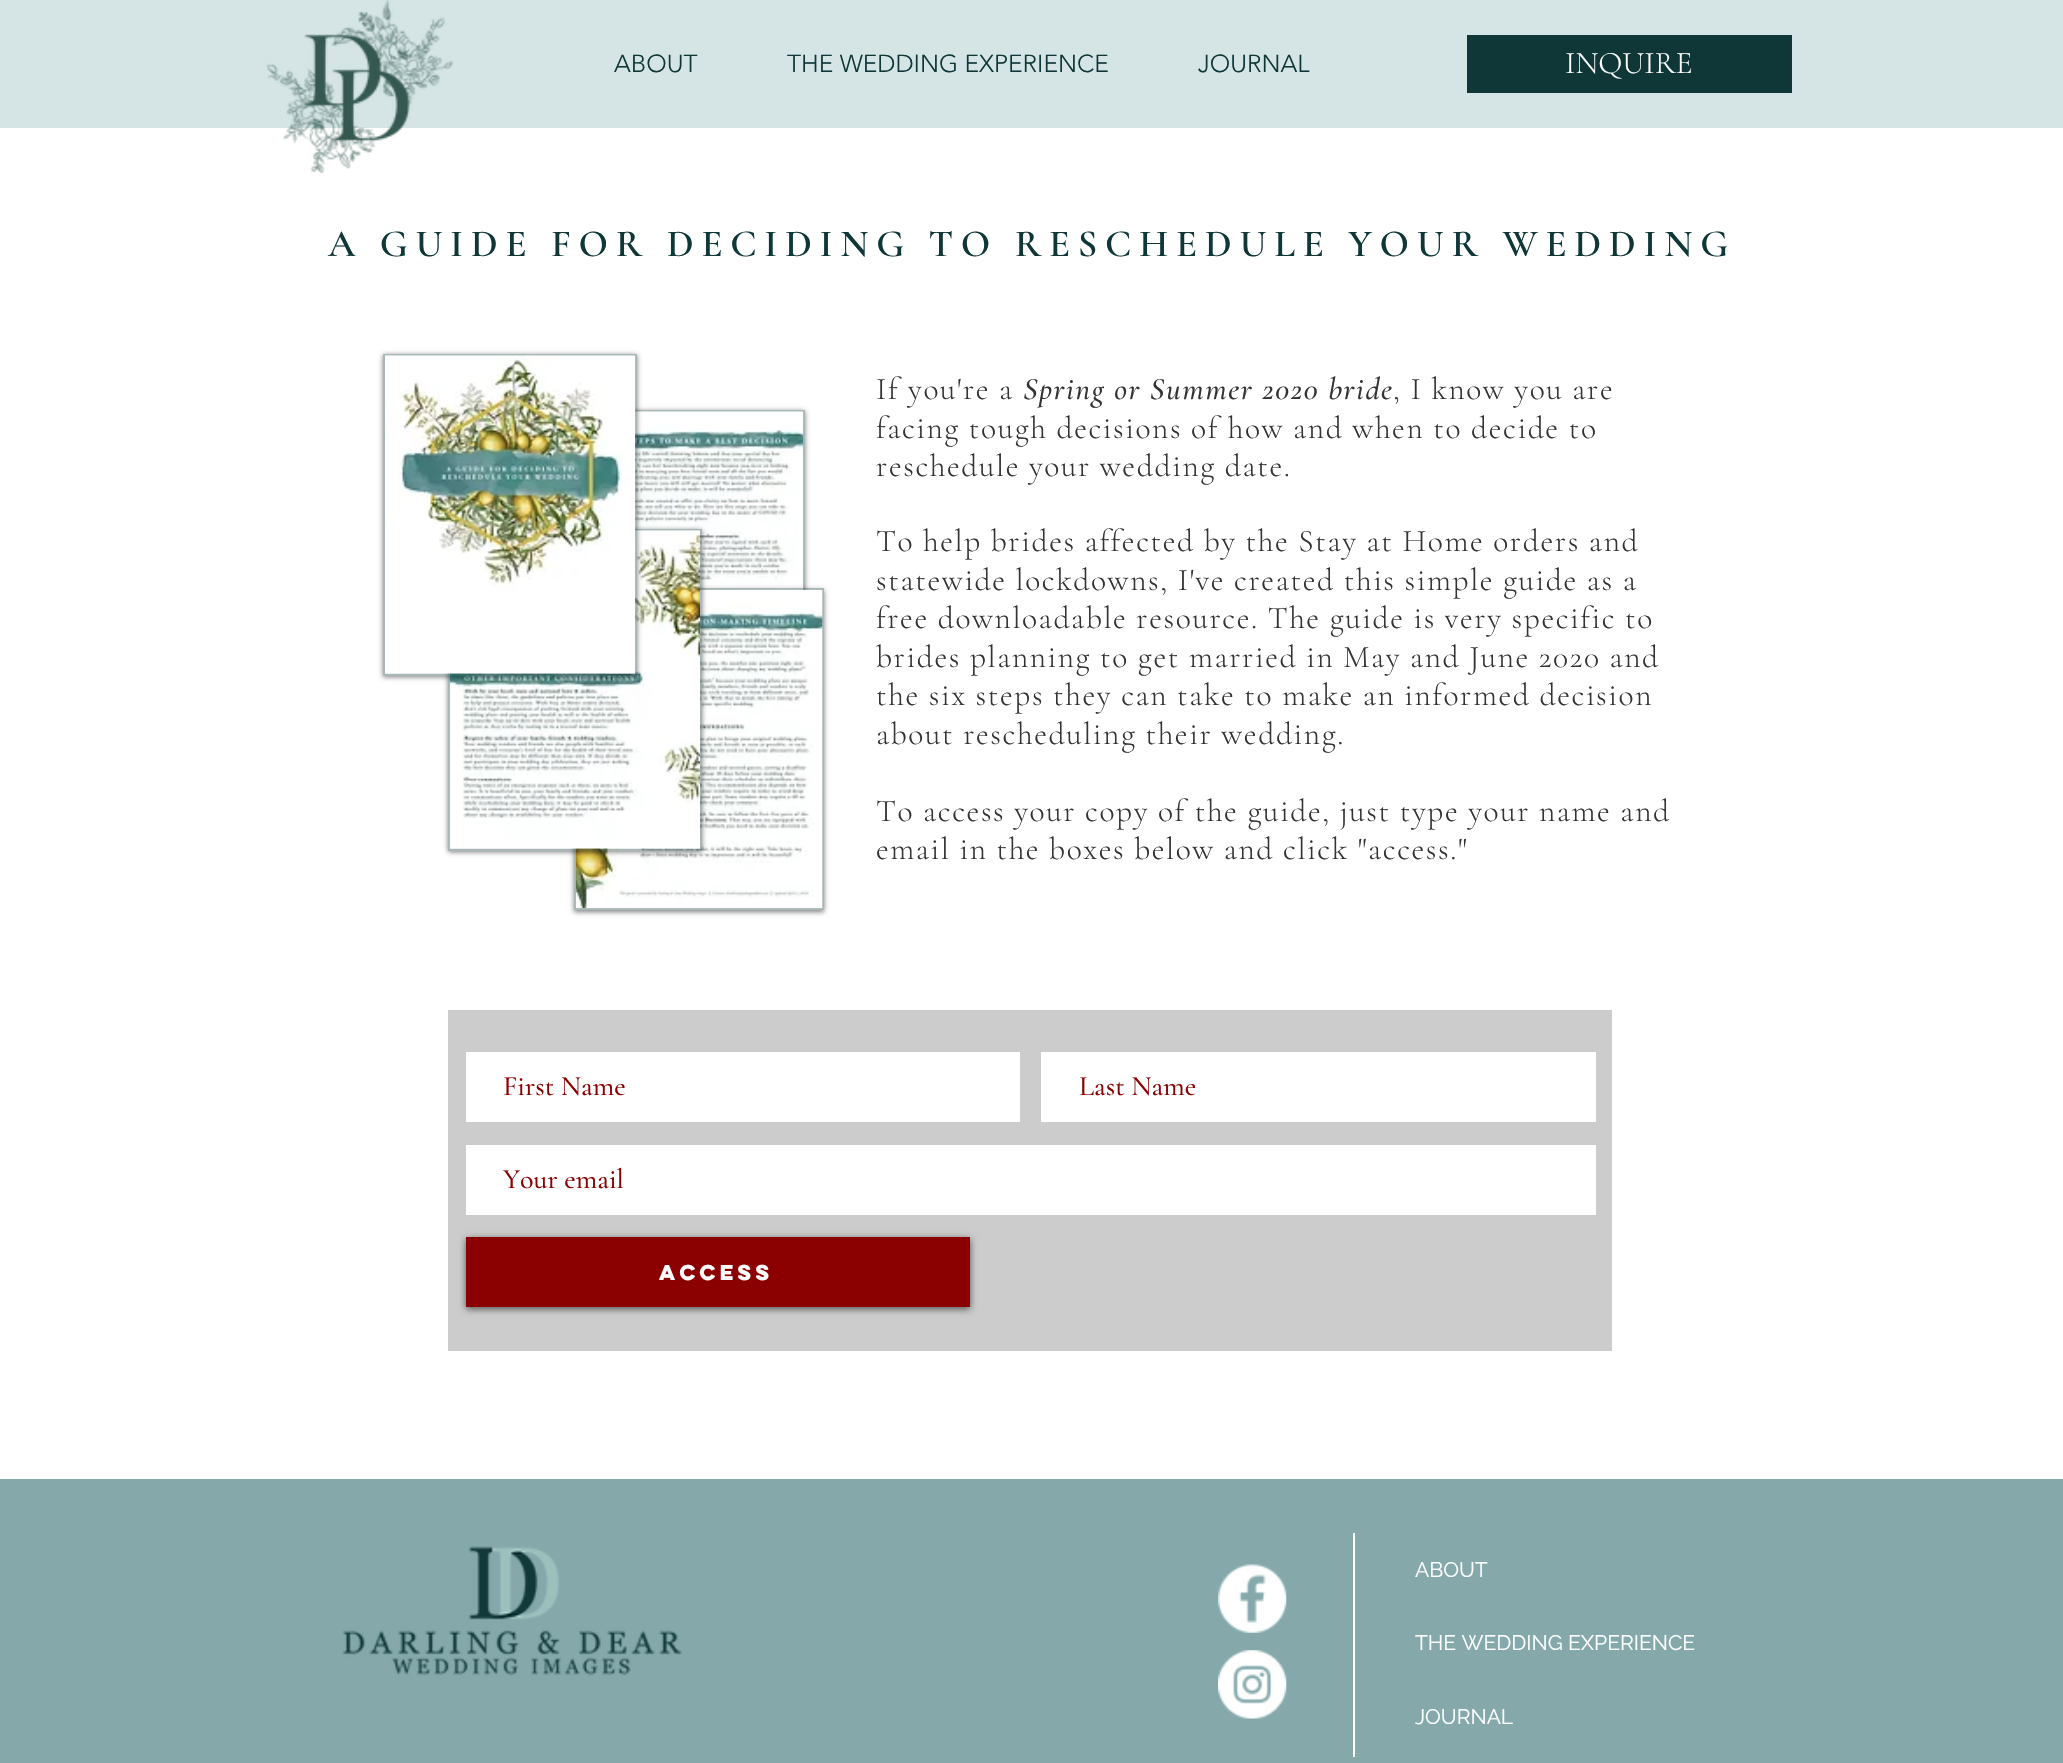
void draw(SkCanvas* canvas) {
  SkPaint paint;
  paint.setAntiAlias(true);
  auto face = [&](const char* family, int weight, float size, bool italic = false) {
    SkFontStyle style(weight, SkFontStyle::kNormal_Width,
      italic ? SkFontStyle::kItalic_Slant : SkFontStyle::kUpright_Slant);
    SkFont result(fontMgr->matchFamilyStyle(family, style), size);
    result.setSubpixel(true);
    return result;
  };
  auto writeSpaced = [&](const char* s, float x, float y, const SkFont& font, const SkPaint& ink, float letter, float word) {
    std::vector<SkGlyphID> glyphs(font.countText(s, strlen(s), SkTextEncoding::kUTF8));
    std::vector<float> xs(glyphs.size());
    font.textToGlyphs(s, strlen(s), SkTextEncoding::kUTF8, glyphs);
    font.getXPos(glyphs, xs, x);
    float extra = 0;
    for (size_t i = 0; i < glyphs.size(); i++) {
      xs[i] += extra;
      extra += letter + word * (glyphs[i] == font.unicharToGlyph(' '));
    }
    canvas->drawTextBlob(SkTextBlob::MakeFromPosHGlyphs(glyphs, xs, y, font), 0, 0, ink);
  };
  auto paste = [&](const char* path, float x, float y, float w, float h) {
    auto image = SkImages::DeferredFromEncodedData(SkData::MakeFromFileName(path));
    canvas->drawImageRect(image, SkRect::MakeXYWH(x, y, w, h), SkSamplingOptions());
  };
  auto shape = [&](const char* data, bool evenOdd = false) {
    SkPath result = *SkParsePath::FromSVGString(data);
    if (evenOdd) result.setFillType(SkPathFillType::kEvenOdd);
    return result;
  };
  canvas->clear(0xffffffff);
  paint.setColor(0xffd5e5e6);
  canvas->drawRect(SkRect::MakeXYWH(0, 0, 2063, 128), paint);
  paste("img/1.png", 266, 0, 188, 173);
  paint.setColor(0xff0f3738);
  canvas->drawRect(SkRect::MakeXYWH(1467, 35, 325, 58), paint);
  canvas->save();
  canvas->clipPath(shape("M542 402H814V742H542ZM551 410H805V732H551Z", true), true);
  paint.setColor(0x80000000);
  paint.setMaskFilter(SkMaskFilter::MakeBlur(kNormal_SkBlurStyle, 2.5f));
  canvas->drawRect(SkRect::MakeXYWH(551, 411, 254, 322), paint);
  paint.setMaskFilter(nullptr);
  canvas->restore();
  paint.setColor(0x330f3738);
  canvas->drawRect(SkRect::MakeXYWH(635, 410, 170, 180), paint);
  paint.setStroke(true);
  paint.setStrokeWidth(2);
  canvas->drawRect(SkRect::MakeXYWH(552, 411, 252, 320), paint);
  paste("img/3.png", 635, 411, 169, 179);
  canvas->save();
  canvas->clipPath(shape("M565 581H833V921H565ZM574 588H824V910H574Z", true), true);
  paint.setStroke(false);
  paint.setColor(0x80000000);
  paint.setMaskFilter(SkMaskFilter::MakeBlur(kNormal_SkBlurStyle, 2.5f));
  canvas->drawRect(SkRect::MakeXYWH(574, 590, 250, 322), paint);
  paint.setMaskFilter(nullptr);
  canvas->restore();
  paint.setColor(0x330f3738);
  canvas->drawRect(SkRect::MakeXYWH(574, 588, 250, 322), paint);
  paint.setStroke(true);
  canvas->drawRect(SkRect::MakeXYWH(575, 589, 248, 320), paint);
  paste("img/5.png", 575, 589, 248, 320);
  canvas->save();
  canvas->clipPath(shape("M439 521H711V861H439ZM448 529H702V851H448Z", true), true);
  paint.setStroke(false);
  paint.setColor(0x80000000);
  paint.setMaskFilter(SkMaskFilter::MakeBlur(kNormal_SkBlurStyle, 2.5f));
  canvas->drawRect(SkRect::MakeXYWH(448, 530, 254, 322), paint);
  paint.setMaskFilter(nullptr);
  canvas->restore();
  paint.setColor(0x330f3738);
  canvas->drawRect(SkRect::MakeXYWH(448, 529, 254, 322), paint);
  paint.setStroke(true);
  canvas->drawRect(SkRect::MakeXYWH(449, 530, 252, 320), paint);
  paste("img/4.png", 449, 530, 251, 319);
  canvas->save();
  canvas->clipPath(shape("M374 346H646V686H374ZM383 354H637V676H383Z", true), true);
  paint.setStroke(false);
  paint.setColor(0x80000000);
  paint.setMaskFilter(SkMaskFilter::MakeBlur(kNormal_SkBlurStyle, 2.5f));
  canvas->drawRect(SkRect::MakeXYWH(383, 355, 254, 322), paint);
  paint.setMaskFilter(nullptr);
  canvas->restore();
  paint.setColor(0x330f3738);
  canvas->drawRect(SkRect::MakeXYWH(383, 354, 254, 322), paint);
  paint.setStroke(true);
  canvas->drawRect(SkRect::MakeXYWH(384, 355, 252, 320), paint);
  paste("img/2.png", 385, 355, 251, 319);
  paint.setStroke(false);
  {
    const struct { float x, y, w, h; SkColor color; } items[] = {
      {448, 1010, 1164, 341, 0xffcccccc},
      {466, 1052, 554, 70, 0xffffffff},
      {1041, 1052, 555, 70, 0xffffffff},
      {466, 1145, 1130, 70, 0xffffffff},
    };
    for (auto [x, y, w, h, color] : items) {
      paint.setColor(color);
      canvas->drawRect(SkRect::MakeXYWH(x, y, w, h), paint);
    }
  }
  paint.setColor(0x99000000);
  paint.setMaskFilter(SkMaskFilter::MakeBlur(kNormal_SkBlurStyle, 3.5f));
  canvas->drawRect(SkRect::MakeXYWH(466, 1239, 504, 70), paint);
  paint.setMaskFilter(nullptr);
  paint.setColor(0xff8b0000);
  canvas->drawRect(SkRect::MakeXYWH(466, 1237, 504, 70), paint);
  paint.setColor(0xff85a9ab);
  canvas->drawRect(SkRect::MakeXYWH(0, 1479, 2063, 284), paint);
  paste("img/6.png", 342, 1546, 340, 130);
  paste("img/7.png", 1218, 1564, 69, 69);
  paste("img/8.png", 1218, 1650, 69, 69);
  paint.setColor(0xffffffff);
  canvas->drawRect(SkRect::MakeXYWH(1353, 1533, 2, 224), paint);
  auto f0 = face("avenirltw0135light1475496", 300, 24.5f);
  paint.setColor(0xff0f3738);
  {
    const struct { const char* s; float x, y; } items[] = {
      {"ABOUT", 614, 72},
      {"THE WEDDING EXPERIENCE", 787, 72},
      {"JOURNAL", 1198, 72},
    };
    for (auto [s, x, y] : items) {
      canvas->drawString(s, x, y, f0, paint);
    }
  }
  auto f1 = face("Cormorant Garamond", 300, 31.5f);
  paint.setColor(0xffffffff);
  canvas->drawString("INQUIRE", 1565, 73, f1, paint);
  auto f2 = face("Cormorant Garamond", 600, 38.5f);
  paint.setColor(0xff0f3738);
  writeSpaced("A GUIDE FOR DECIDING TO RESCHEDULE YOUR WEDDING", 328, 256, f2, paint, 7.7f, 0);
  paint.setColor(0xff333333);
  writeSpaced("If you're a", 876, 399, f1, paint, 1.57f, 0);
  auto f3 = face("Cormorant Garamond", 500, 31.5f, true);
  writeSpaced("Spring or Summer 2020 bride", 1023, 399, f3, paint, 1.57f, 0);
  {
    const struct { const char* s; float x, y; } items[] = {
      {", I know you are", 1393, 399},
      {"facing tough decisions of how and when to decide to", 876, 438},
      {"reschedule your wedding date.", 876, 476},
      {"To help brides affected by the Stay at Home orders and", 876, 551},
      {"statewide lockdowns, I've created this simple guide as a", 876, 590},
      {"free downloadable resource. The guide is very specific to", 876, 628},
      {"brides planning to get married in May and June 2020 and", 876, 667},
      {"the six steps they can take to make an informed decision", 876, 705},
      {"about rescheduling their wedding.", 876, 744},
      {"To access your copy of the guide, just type your name and", 876, 821},
      {"email in the boxes below and click \"access.\"", 876, 859},
    };
    for (auto [s, x, y] : items) {
      writeSpaced(s, x, y, f1, paint, 1.57f, 0);
    }
  }
  auto f4 = face("Cormorant Garamond", 500, 28);
  paint.setColor(0xff8b0000);
  {
    const struct { const char* s; float x, y; } items[] = {
      {"First Name", 503, 1095},
      {"Last Name", 1079, 1095},
      {"Your email", 503, 1188},
    };
    for (auto [s, x, y] : items) {
      canvas->drawString(s, x, y, f4, paint);
    }
  }
  auto f5 = face("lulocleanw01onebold", 700, 19.25f);
  paint.setColor(0xffffffff);
  canvas->drawString("ACCESS", 659, 1280, f5, paint);
  auto f6 = face("Raleway", 400, 21);
  {
    const struct { const char* s; float x, y; } items[] = {
      {"ABOUT", 1415, 1577},
      {"THE WEDDING EXPERIENCE", 1415, 1650},
      {"JOURNAL", 1415, 1724},
    };
    for (auto [s, x, y] : items) {
      canvas->drawString(s, x, y, f6, paint);
    }
  }
}
